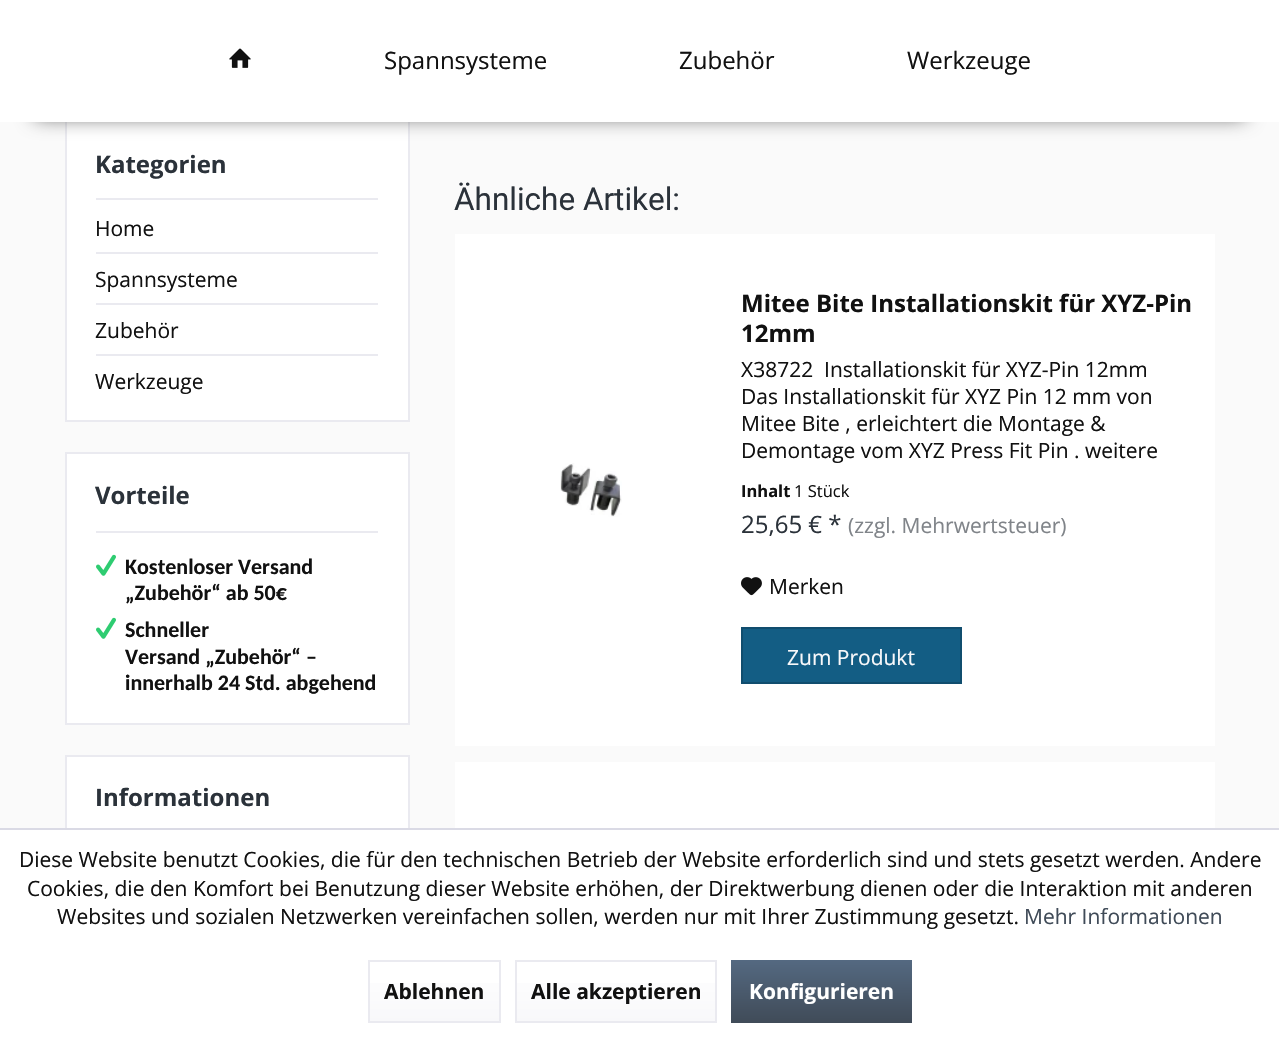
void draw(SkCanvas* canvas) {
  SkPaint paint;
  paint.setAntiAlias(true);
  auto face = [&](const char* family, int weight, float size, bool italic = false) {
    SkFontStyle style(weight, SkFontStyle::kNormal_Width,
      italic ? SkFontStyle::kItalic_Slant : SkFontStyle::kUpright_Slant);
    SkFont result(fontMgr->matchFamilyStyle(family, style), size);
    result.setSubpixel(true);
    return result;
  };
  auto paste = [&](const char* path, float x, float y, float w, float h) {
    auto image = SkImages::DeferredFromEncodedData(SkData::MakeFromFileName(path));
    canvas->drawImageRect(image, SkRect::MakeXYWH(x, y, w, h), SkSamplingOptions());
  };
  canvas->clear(0xfffafafa);
  {
    const struct { float x, y, w, h; SkColor color; } items[] = {
      {67, 122, 341, 298, 0xffffffff},
      {408, 120, 2, 302, 0xffeaeaf0},
      {65, 420, 345, 2, 0xffeaeaf0},
      {65, 120, 2, 302, 0xffeaeaf0},
    };
    for (auto [x, y, w, h, color] : items) {
      paint.setColor(color);
      canvas->drawRect(SkRect::MakeXYWH(x, y, w, h), paint);
    }
  }
  paint.setColor(0xff555555);
  paint.setMaskFilter(SkMaskFilter::MakeBlur(kNormal_SkBlurStyle, 10));
  canvas->drawRect(SkRect::MakeXYWH(35, 65, 1210, 52), paint);
  paint.setMaskFilter(nullptr);
  paint.setColor(0xffffffff);
  canvas->drawRect(SkRect::MakeXYWH(0, 0, 1279, 122), paint);
  paste("img/1.png", 229, 48, 22, 20);
  {
    const struct { float x, y, w, h; SkColor color; } items[] = {
      {96, 198, 282, 2, 0xffeaeaf0},
      {96, 252, 282, 2, 0xffeaeaf0},
      {96, 303, 282, 2, 0xffeaeaf0},
      {96, 354, 282, 2, 0xffeaeaf0},
    };
    for (auto [x, y, w, h, color] : items) {
      paint.setColor(color);
      canvas->drawRect(SkRect::MakeXYWH(x, y, w, h), paint);
    }
  }
  paint.setColor(0xffffffff);
  canvas->drawRect(SkRect::MakeXYWH(66, 453, 343, 271), paint);
  paint.setStroke(true);
  paint.setStrokeWidth(2);
  paint.setColor(0xffeaeaf0);
  canvas->drawRect(SkRect::MakeXYWH(66, 453, 343, 271), paint);
  paint.setStroke(false);
  canvas->drawRect(SkRect::MakeXYWH(96, 531, 282, 2), paint);
  paste("img/2.png", 96, 554, 20, 22);
  paste("img/2.png", 96, 617, 20, 22);
  paint.setColor(0xffffffff);
  canvas->drawRect(SkRect::MakeXYWH(67, 757, 341, 71), paint);
  paint.setStroke(true);
  paint.setColor(0xffeaeaf0);
  canvas->drawRect(SkRect::MakeXYWH(66, 756, 343, 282), paint);
  paint.setStroke(false);
  paint.setColor(0xffffffff);
  canvas->drawRect(SkRect::MakeXYWH(456, 235, 758, 510), paint);
  paint.setStroke(true);
  canvas->drawRect(SkRect::MakeXYWH(456, 235, 758, 510), paint);
  paste("img/3.png", 560, 463, 62, 54);
  paste("img/4.png", 741, 577, 21, 19);
  paint.setStroke(false);
  paint.setColor(0xff135d84);
  canvas->drawRect(SkRect::MakeXYWH(742, 628, 219, 55), paint);
  paint.setStroke(true);
  paint.setColor(0xff104d6e);
  canvas->drawRect(SkRect::MakeXYWH(742, 628, 219, 55), paint);
  paint.setStroke(false);
  paint.setColor(0xffffffff);
  canvas->drawRect(SkRect::MakeXYWH(457, 764, 756, 64), paint);
  paint.setStroke(true);
  canvas->drawRect(SkRect::MakeXYWH(456, 763, 758, 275), paint);
  paint.setStroke(false);
  canvas->drawRect(SkRect::MakeXYWH(0, 830, 1279, 207), paint);
  paint.setColor(0xffdadae5);
  canvas->drawRect(SkRect::MakeXYWH(0, 828, 1279, 2), paint);
  {
    const SkColor colors[] = {0xffffffff, 0xfff8f8fa};
    const float stops[] = {0, 1};
    const SkPoint ends[] = {{434, 962}, {434, 1022}};
    paint.setShader(SkGradientShader::MakeLinear(ends, colors, stops, 2, SkTileMode::kClamp));
    paint.setAlpha(255);
  }
  canvas->drawRect(SkRect::MakeXYWH(370, 983, 129, 38), paint);
  paint.setStroke(true);
  paint.setShader(nullptr);
  paint.setColor(0xffeaeaf0);
  canvas->drawRect(SkRect::MakeXYWH(369, 961, 131, 61), paint);
  paint.setStroke(false);
  {
    const SkColor colors[] = {0xffffffff, 0xfff8f8fa};
    const float stops[] = {0, 1};
    const SkPoint ends[] = {{616, 962}, {616, 1022}};
    paint.setShader(SkGradientShader::MakeLinear(ends, colors, stops, 2, SkTileMode::kClamp));
    paint.setAlpha(255);
  }
  canvas->drawRect(SkRect::MakeXYWH(517, 983, 198, 38), paint);
  paint.setStroke(true);
  paint.setShader(nullptr);
  paint.setColor(0xffeaeaf0);
  canvas->drawRect(SkRect::MakeXYWH(516, 961, 200, 61), paint);
  paint.setStroke(false);
  {
    const SkColor colors[] = {0xff546981, 0xff404b58};
    const float stops[] = {0, 1};
    const SkPoint ends[] = {{821, 960}, {821, 1023}};
    paint.setShader(SkGradientShader::MakeLinear(ends, colors, stops, 2, SkTileMode::kClamp));
    paint.setAlpha(255);
  }
  canvas->drawRect(SkRect::MakeXYWH(731, 960, 181, 63), paint);
  auto f0 = face("Open Sans", 400, 24);
  paint.setShader(nullptr);
  paint.setColor(0xff111111);
  {
    const struct { const char* s; float x, y; } items[] = {
      {"Spannsysteme", 384, 69},
      {"Zubehör", 679, 69},
      {"Werkzeuge", 907, 69},
    };
    for (auto [s, x, y] : items) {
      canvas->drawString(s, x, y, f0, paint);
    }
  }
  auto f1 = face("Open Sans", 700, 24);
  paint.setColor(0xff2b323a);
  canvas->drawString("Kategorien", 95, 173, f1, paint);
  auto f2 = face("Open Sans", 400, 21);
  paint.setColor(0xff111111);
  {
    const struct { const char* s; float x, y; } items[] = {
      {"Home", 95, 236},
      {"Spannsysteme", 95, 287},
      {"Zubehör", 95, 338},
      {"Werkzeuge", 95, 389},
    };
    for (auto [s, x, y] : items) {
      canvas->drawString(s, x, y, f2, paint);
    }
  }
  paint.setColor(0xff2b323a);
  canvas->drawString("Vorteile", 95, 504, f1, paint);
  auto f3 = face("Carlito", 700, 22);
  paint.setColor(0xff111111);
  {
    const struct { const char* s; float x, y; } items[] = {
      {"Kostenloser Versand", 125, 574},
      {"„Zubehör“ ab 50€", 125, 600},
      {"Schneller", 125, 637},
      {"Versand „Zubehör“ –", 125, 664},
      {"innerhalb 24 Std. abgehend", 125, 690},
    };
    for (auto [s, x, y] : items) {
      canvas->drawString(s, x, y, f3, paint);
    }
  }
  paint.setColor(0xff2b323a);
  canvas->drawString("Informationen", 95, 806, f1, paint);
  auto f4 = face("Roboto", 400, 31.5f);
  canvas->drawString("Ähnliche Artikel:", 454, 210, f4, paint);
  paint.setColor(0xff111111);
  canvas->drawString("Mitee Bite Installationskit für XYZ-Pin", 741, 312, f1, paint);
  canvas->drawString("12mm", 741, 342, f1, paint);
  {
    const struct { const char* s; float x, y; } items[] = {
      {"X38722  Installationskit für XYZ-Pin 12mm", 741, 377},
      {"Das Installationskit für XYZ Pin 12 mm von", 741, 404},
      {"Mitee Bite , erleichtert die Montage &", 741, 431},
      {"Demontage vom XYZ Press Fit Pin . weitere", 741, 458},
    };
    for (auto [s, x, y] : items) {
      canvas->drawString(s, x, y, f2, paint);
    }
  }
  auto f5 = face("Open Sans", 700, 16.5f);
  canvas->drawString("Inhalt", 741, 497, f5, paint);
  auto f6 = face("Open Sans", 400, 16.5f);
  canvas->drawString("1 Stück", 794, 497, f6, paint);
  paint.setColor(0xff2b323a);
  canvas->drawString("25,65 € *", 741, 533, f0, paint);
  paint.setColor(0xff808489);
  canvas->drawString("(zzgl. Mehrwertsteuer)", 848, 533, f2, paint);
  paint.setColor(0xff111111);
  canvas->drawString("Merken", 769, 594, f2, paint);
  paint.setColor(0xfff8f8fa);
  canvas->drawString("Zum Produkt", 787, 665, f2, paint);
  paint.setColor(0xff111111);
  {
    const struct { const char* s; float x, y; } items[] = {
      {"Diese Website benutzt Cookies, die für den technischen Betrieb der Website erforderlich sind und stets gesetzt werden. Andere", 19, 867},
      {"Cookies, die den Komfort bei Benutzung dieser Website erhöhen, der Direktwerbung dienen oder die Interaktion mit anderen", 27, 896},
      {"Websites und sozialen Netzwerken vereinfachen sollen, werden nur mit Ihrer Zustimmung gesetzt.", 57, 924},
    };
    for (auto [s, x, y] : items) {
      canvas->drawString(s, x, y, f2, paint);
    }
  }
  paint.setColor(0xff404b58);
  canvas->drawString("Mehr Informationen", 1024, 924, f2, paint);
  auto f7 = face("Open Sans", 700, 21);
  paint.setColor(0xff111111);
  canvas->drawString("Ablehnen", 384, 999, f7, paint);
  canvas->drawString("Alle akzeptieren", 531, 999, f7, paint);
  paint.setColor(0xffffffff);
  canvas->drawString("Konfigurieren", 749, 999, f7, paint);
}
